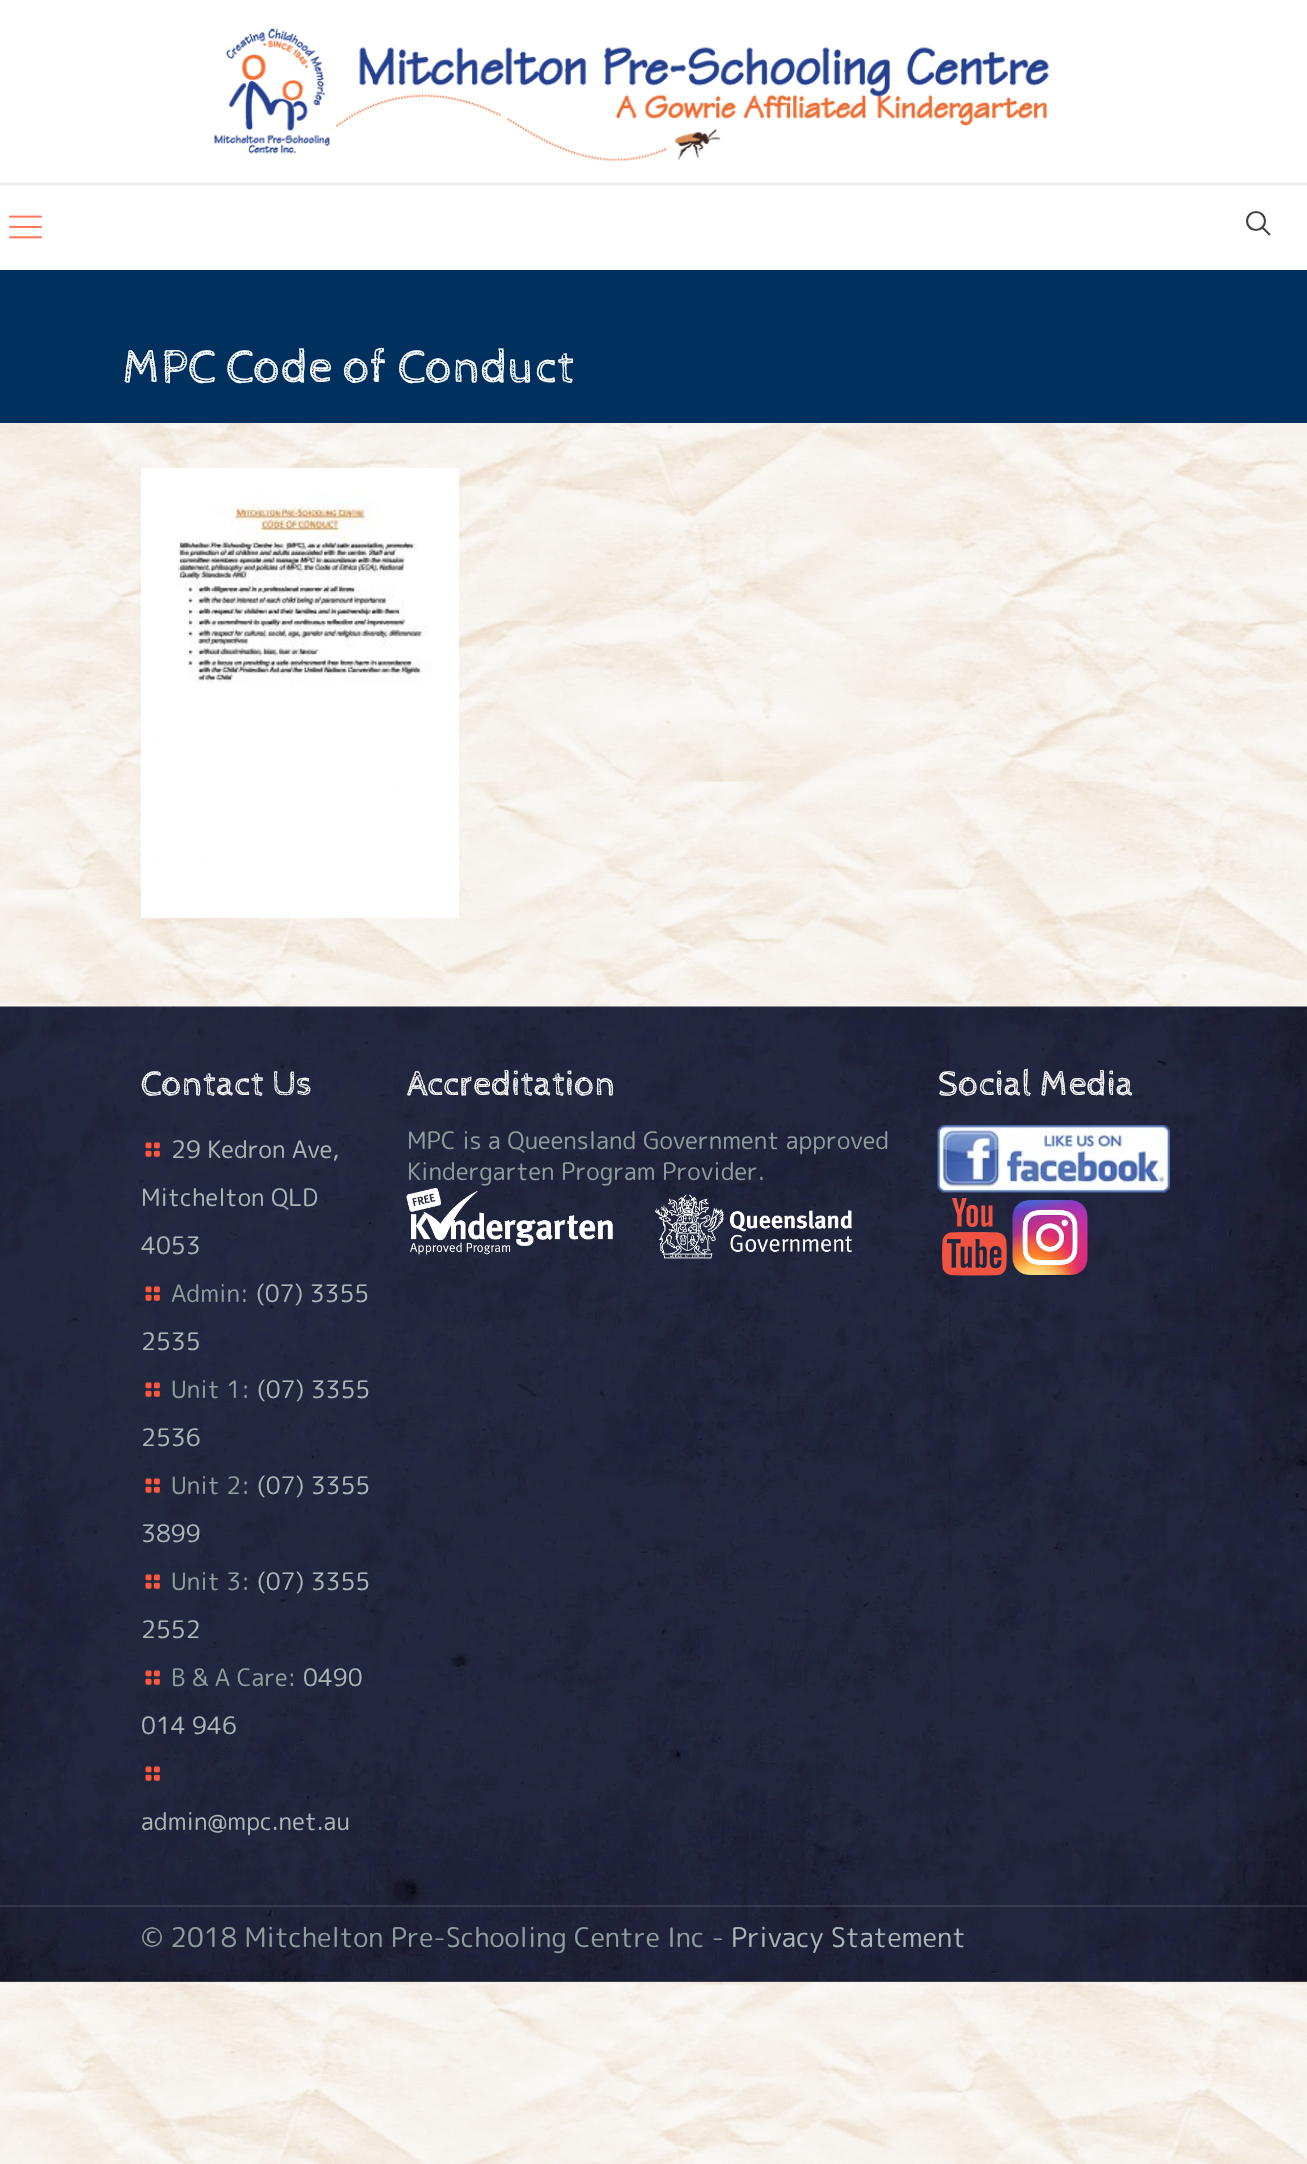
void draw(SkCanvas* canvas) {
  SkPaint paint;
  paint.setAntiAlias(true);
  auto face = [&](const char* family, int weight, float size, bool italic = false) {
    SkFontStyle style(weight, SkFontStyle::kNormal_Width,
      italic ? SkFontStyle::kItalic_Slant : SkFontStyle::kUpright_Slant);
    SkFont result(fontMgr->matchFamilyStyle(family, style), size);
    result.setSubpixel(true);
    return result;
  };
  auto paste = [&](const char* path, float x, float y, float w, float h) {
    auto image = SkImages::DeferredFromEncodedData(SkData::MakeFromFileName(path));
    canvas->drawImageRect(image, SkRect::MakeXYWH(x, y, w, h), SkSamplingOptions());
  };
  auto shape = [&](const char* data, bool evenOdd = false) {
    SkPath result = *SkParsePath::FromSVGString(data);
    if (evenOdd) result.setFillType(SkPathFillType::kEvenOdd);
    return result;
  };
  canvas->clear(0xfffcfcfc);
  paste("img/1.png", 0, 423, 1307, 1741);
  paint.setColor(0xffffffff);
  canvas->drawRect(SkRect::MakeXYWH(0, 0, 1307, 270), paint);
  paint.setColor(0xffebebeb);
  canvas->drawRect(SkRect::MakeXYWH(0, 183, 1307, 2), paint);
  paste("img/2.png", 214, 28, 835, 133);
  paste("img/3.png", 9, 215, 33, 24);
  paint.setStroke(true);
  paint.setStrokeWidth(2.2f);
  paint.setColor(0xff444444);
  canvas->drawCircle(1256, 221, 9, paint);
  canvas->drawPath(shape("M1262.5 227.5L1270 235"), paint);
  paint.setStroke(false);
  paint.setColor(0xff00315e);
  canvas->drawRect(SkRect::MakeXYWH(0, 270, 1307, 153), paint);
  paste("img/4.png", 141, 468, 318, 450);
  paint.setColor(0xff545454);
  canvas->drawRect(SkRect::MakeXYWH(0, 1981, 1307, 1), paint);
  paste("img/5.png", 0, 1006, 1307, 976);
  paste("img/6.png", 145, 1142, 15, 15);
  paste("img/7.png", 145, 1286, 15, 15);
  paste("img/8.png", 145, 1382, 15, 15);
  paste("img/9.png", 145, 1478, 15, 15);
  paste("img/10.png", 145, 1574, 15, 15);
  paste("img/11.png", 145, 1670, 15, 15);
  paste("img/12.png", 145, 1766, 15, 15);
  paste("img/13.png", 406, 1188, 446, 71);
  paste("img/14.png", 937, 1125, 233, 68);
  paste("img/15.png", 942, 1198, 65, 78);
  paste("img/16.png", 1012, 1200, 76, 75);
  paint.setColor(0x1affffff);
  canvas->drawRect(SkRect::MakeXYWH(0, 1905, 1307, 2), paint);
  auto f0 = face("Cabin Sketch", 400, 48);
  paint.setColor(0xffffffff);
  canvas->drawString("MPC Code of Conduct", 123, 382, f0, paint);
  auto f1 = face("Cabin Sketch", 400, 36);
  canvas->drawString("Contact Us", 141, 1095, f1, paint);
  auto f2 = face("Rounded Mplus 1c", 400, 24);
  paint.setColor(0xffabb7b7);
  {
    const struct { const char* s; float x, y; } items[] = {
      {"29 Kedron Ave,", 171, 1158},
      {"Mitchelton QLD", 141, 1206},
      {"4053", 141, 1254},
    };
    for (auto [s, x, y] : items) {
      canvas->drawString(s, x, y, f2, paint);
    }
  }
  paint.setColor(0xff8e9d9d);
  canvas->drawString("Admin:", 171, 1302, f2, paint);
  paint.setColor(0xffabb7b7);
  canvas->drawString("(07) 3355", 256, 1302, f2, paint);
  canvas->drawString("2535", 141, 1350, f2, paint);
  paint.setColor(0xff8e9d9d);
  canvas->drawString("Unit 1:", 171, 1398, f2, paint);
  paint.setColor(0xffabb7b7);
  canvas->drawString("(07) 3355", 257, 1398, f2, paint);
  canvas->drawString("2536", 141, 1446, f2, paint);
  paint.setColor(0xff8e9d9d);
  canvas->drawString("Unit 2:", 171, 1494, f2, paint);
  paint.setColor(0xffabb7b7);
  canvas->drawString("(07) 3355", 257, 1494, f2, paint);
  canvas->drawString("3899", 141, 1542, f2, paint);
  paint.setColor(0xff8e9d9d);
  canvas->drawString("Unit 3:", 171, 1590, f2, paint);
  paint.setColor(0xffabb7b7);
  canvas->drawString("(07) 3355", 257, 1590, f2, paint);
  canvas->drawString("2552", 141, 1638, f2, paint);
  paint.setColor(0xff8e9d9d);
  canvas->drawString("B & A Care:", 171, 1686, f2, paint);
  paint.setColor(0xffabb7b7);
  {
    const struct { const char* s; float x, y; } items[] = {
      {"0490", 303, 1686},
      {"014 946", 141, 1734},
      {"admin@mpc.net.au", 141, 1830},
    };
    for (auto [s, x, y] : items) {
      canvas->drawString(s, x, y, f2, paint);
    }
  }
  paint.setColor(0xffffffff);
  canvas->drawString("Accreditation", 407, 1095, f1, paint);
  paint.setColor(0xff8e9d9d);
  canvas->drawString("MPC is a Queensland Government approved", 407, 1149, f2, paint);
  canvas->drawString("Kindergarten Program Provider.", 407, 1180, f2, paint);
  paint.setColor(0xffffffff);
  canvas->drawString("Social Media", 938, 1095, f1, paint);
  auto f3 = face("Rounded Mplus 1c", 400, 27);
  paint.setColor(0xff8e9d9d);
  canvas->drawString("© 2018 Mitchelton Pre-Schooling Centre Inc -", 141, 1947, f3, paint);
  paint.setColor(0xffabb7b7);
  canvas->drawString("Privacy Statement", 731, 1947, f3, paint);
}
